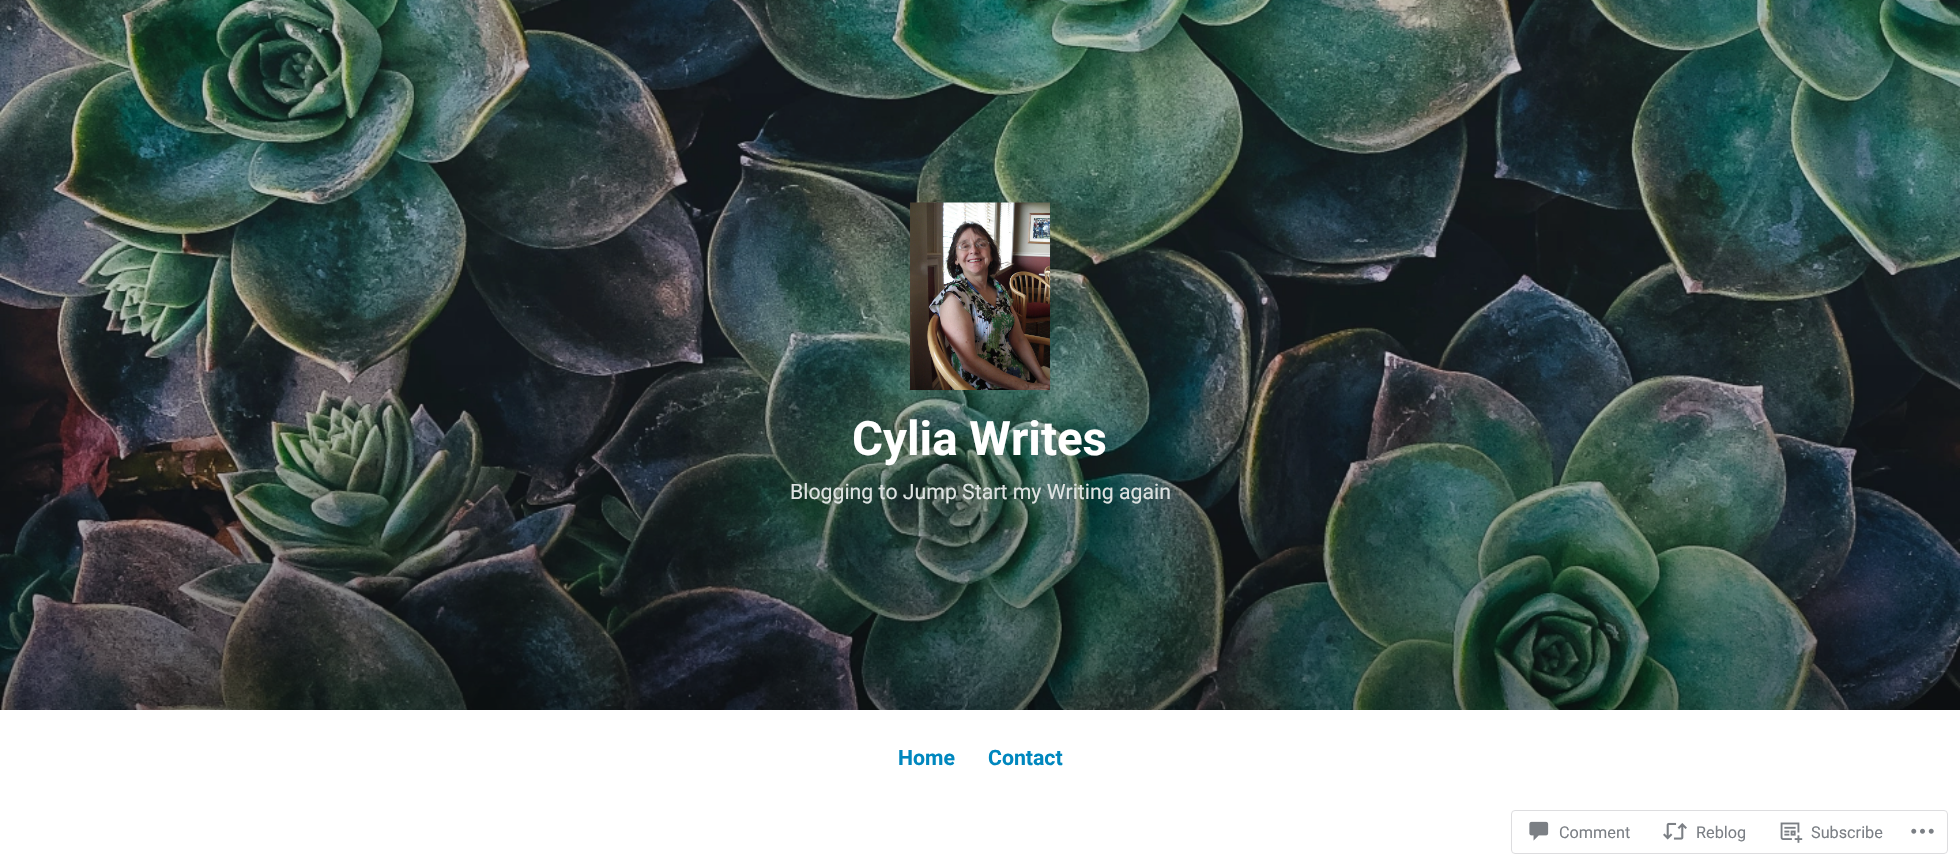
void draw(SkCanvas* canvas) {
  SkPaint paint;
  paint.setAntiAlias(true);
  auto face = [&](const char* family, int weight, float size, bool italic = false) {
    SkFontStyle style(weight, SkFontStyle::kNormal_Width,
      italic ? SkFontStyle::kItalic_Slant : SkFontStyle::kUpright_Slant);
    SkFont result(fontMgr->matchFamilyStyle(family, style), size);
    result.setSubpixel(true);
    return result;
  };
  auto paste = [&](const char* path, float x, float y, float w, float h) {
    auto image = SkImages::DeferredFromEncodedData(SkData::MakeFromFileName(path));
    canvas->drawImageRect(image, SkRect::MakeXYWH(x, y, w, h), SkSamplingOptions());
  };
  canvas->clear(0xffffffff);
  paste("img/1.png", 0, 0, 1960, 710);
  paste("img/2.png", 910, 202, 140, 188);
  paint.setStroke(true);
  paint.setStrokeWidth(1);
  paint.setColor(0xffdddddf);
  canvas->drawRoundRect(SkRect::MakeXYWH(1511.5f, 810.5f, 436, 43), 3.5f, 3.5f, paint);
  paste("img/3.png", 1529, 821, 20, 20);
  paste("img/4.png", 1663, 822, 24, 18);
  paste("img/5.png", 1780, 822, 23, 21);
  paste("img/6.png", 1911, 828, 23, 6);
  auto f0 = face("Roboto", 700, 47.5f);
  paint.setStroke(false);
  paint.setColor(0xffffffff);
  canvas->drawString("Cylia Writes", 852, 455, f0, paint);
  auto f1 = face("Roboto", 400, 21.25f);
  paint.setColor(0xffdee3e2);
  canvas->drawString("Blogging to Jump Start my Writing again", 790, 499, f1, paint);
  auto f2 = face("Roboto", 700, 21.25f);
  paint.setColor(0xff0087be);
  canvas->drawString("Home", 898, 765, f2, paint);
  canvas->drawString("Contact", 988, 765, f2, paint);
  auto f3 = face("Roboto", 400, 16.25f);
  paint.setColor(0xff7b7f85);
  {
    const struct { const char* s; float x, y; } items[] = {
      {"Comment", 1559, 838},
      {"Reblog", 1696, 838},
      {"Subscribe", 1811, 838},
    };
    for (auto [s, x, y] : items) {
      canvas->drawString(s, x, y, f3, paint);
    }
  }
}
